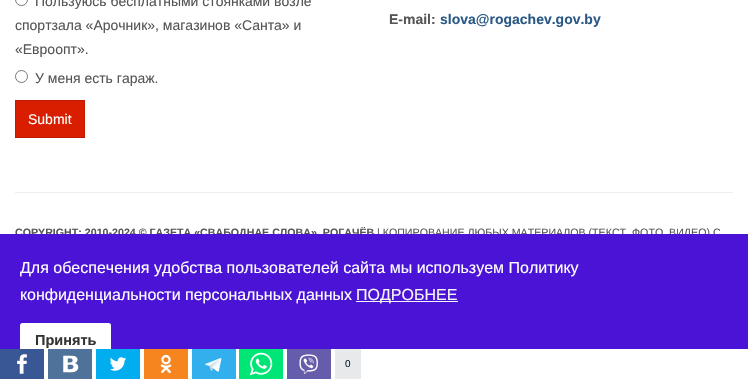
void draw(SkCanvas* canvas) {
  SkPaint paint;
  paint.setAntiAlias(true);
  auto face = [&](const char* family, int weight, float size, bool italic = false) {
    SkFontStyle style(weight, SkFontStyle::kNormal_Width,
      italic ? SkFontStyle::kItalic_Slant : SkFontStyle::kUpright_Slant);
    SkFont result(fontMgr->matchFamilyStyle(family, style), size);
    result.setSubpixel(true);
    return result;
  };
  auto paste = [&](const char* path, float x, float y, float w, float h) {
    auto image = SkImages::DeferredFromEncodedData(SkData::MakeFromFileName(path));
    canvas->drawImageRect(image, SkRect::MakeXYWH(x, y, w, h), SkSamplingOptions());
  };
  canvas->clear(0xffffffff);
  paint.setStroke(true);
  paint.setStrokeWidth(1);
  paint.setColor(0xff767676);
  canvas->drawCircle(21.5f, -0.5f, 6, paint);
  canvas->drawCircle(21.5f, 76.5f, 6, paint);
  paint.setStroke(false);
  paint.setColor(0xffd91e00);
  canvas->drawRect(SkRect::MakeXYWH(15.5f, 100.5f, 69, 37), paint);
  paint.setStroke(true);
  paint.setColor(0xffc01a00);
  canvas->drawRect(SkRect::MakeXYWH(15.5f, 100.5f, 69, 37), paint);
  paint.setStroke(false);
  paint.setColor(0xffeeeeee);
  canvas->drawRect(SkRect::MakeXYWH(15, 192, 718, 1), paint);
  paint.setColor(0xfff6851f);
  canvas->drawRect(SkRect::MakeXYWH(144, 349, 44, 30), paint);
  paste("img/4.png", 160, 354, 12, 20);
  paint.setColor(0xff32afed);
  canvas->drawRect(SkRect::MakeXYWH(192, 349, 44, 30), paint);
  paste("img/5.png", 205, 358, 17, 14);
  paint.setColor(0xff00e676);
  canvas->drawRect(SkRect::MakeXYWH(239, 349, 44, 30), paint);
  paste("img/6.png", 249, 352, 24, 24);
  paint.setColor(0xff665cac);
  canvas->drawRect(SkRect::MakeXYWH(287, 349, 44, 30), paint);
  paste("img/7.png", 299, 354, 19, 20);
  paint.setColor(0xffe7e9eb);
  canvas->drawRect(SkRect::MakeXYWH(335, 349, 26, 30), paint);
  auto f0 = face("Liberation Sans", 400, 14);
  paint.setColor(0xff555555);
  {
    const struct { const char* s; float x, y; } items[] = {
      {"Пользуюсь бесплатными стоянками возле", 35, 6},
      {"спортзала «Арочник», магазинов «Санта» и", 15, 30},
      {"«Евроопт».", 15, 54},
      {"У меня есть гараж.", 35, 83},
    };
    for (auto [s, x, y] : items) {
      canvas->drawString(s, x, y, f0, paint);
    }
  }
  paint.setColor(0xffffffff);
  canvas->drawString("Submit", 28, 124, f0, paint);
  auto f1 = face("Liberation Sans", 700, 14);
  paint.setColor(0xff555555);
  canvas->drawString("Е-mail:", 389, 24, f1, paint);
  paint.setColor(0xff2a5885);
  canvas->drawString("slova@rogachev.gov.by", 440, 24, f1, paint);
  auto f2 = face("Liberation Sans", 700, 10.65f);
  paint.setColor(0xff555555);
  canvas->drawString("COPYRIGHT: 2010-2024 © ГАЗЕТА «СВАБОДНАЕ СЛОВА». РОГАЧЁВ", 15, 236, f2, paint);
  auto f3 = face("Liberation Sans", 400, 10.65f);
  canvas->drawString("| КОПИРОВАНИЕ ЛЮБЫХ МАТЕРИАЛОВ (ТЕКСТ, ФОТО, ВИДЕО) С", 377, 236, f3, paint);
  auto f4 = face("Liberation Sans", 400, 10);
  paint.setColor(0xff122334);
  canvas->drawString("0", 345, 367, f4, paint);
  paint.setColor(0xff4a13d6);
  canvas->drawRect(SkRect::MakeXYWH(0, 234, 748, 115), paint);
  auto f5 = face("Liberation Sans", 400, 16);
  paint.setColor(0xffffffff);
  canvas->drawString("Для обеспечения удобства пользователей сайта мы используем Политику", 20, 273, f5, paint);
  canvas->drawString("конфиденциальности персональных данных", 20, 300, f5, paint);
  paint.setColor(0xfff5f5f5);
  canvas->drawRect(SkRect::MakeXYWH(356, 301, 102, 1), paint);
  canvas->drawString("ПОДРОБНЕЕ", 356, 300, f5, paint);
  paint.setColor(0xffffffff);
  canvas->drawRoundRect(SkRect::MakeXYWH(20, 323, 91, 36), 2.5f, 2.5f, paint);
  paint.setColor(0xff00aeef);
  canvas->drawRect(SkRect::MakeXYWH(96, 349, 44, 30), paint);
  paste("img/3.png", 109, 357, 17, 14);
  paint.setColor(0xff4e7299);
  canvas->drawRect(SkRect::MakeXYWH(48, 349, 44, 30), paint);
  paste("img/2.png", 63, 355, 16, 18);
  paint.setColor(0xff3a5795);
  canvas->drawRect(SkRect::MakeXYWH(0, 349, 44, 30), paint);
  paste("img/1.png", 17, 354, 10, 20);
  auto f6 = face("Liberation Sans", 700, 14.5f);
  paint.setColor(0xff333333);
  canvas->drawString("Принять", 35, 345, f6, paint);
}
